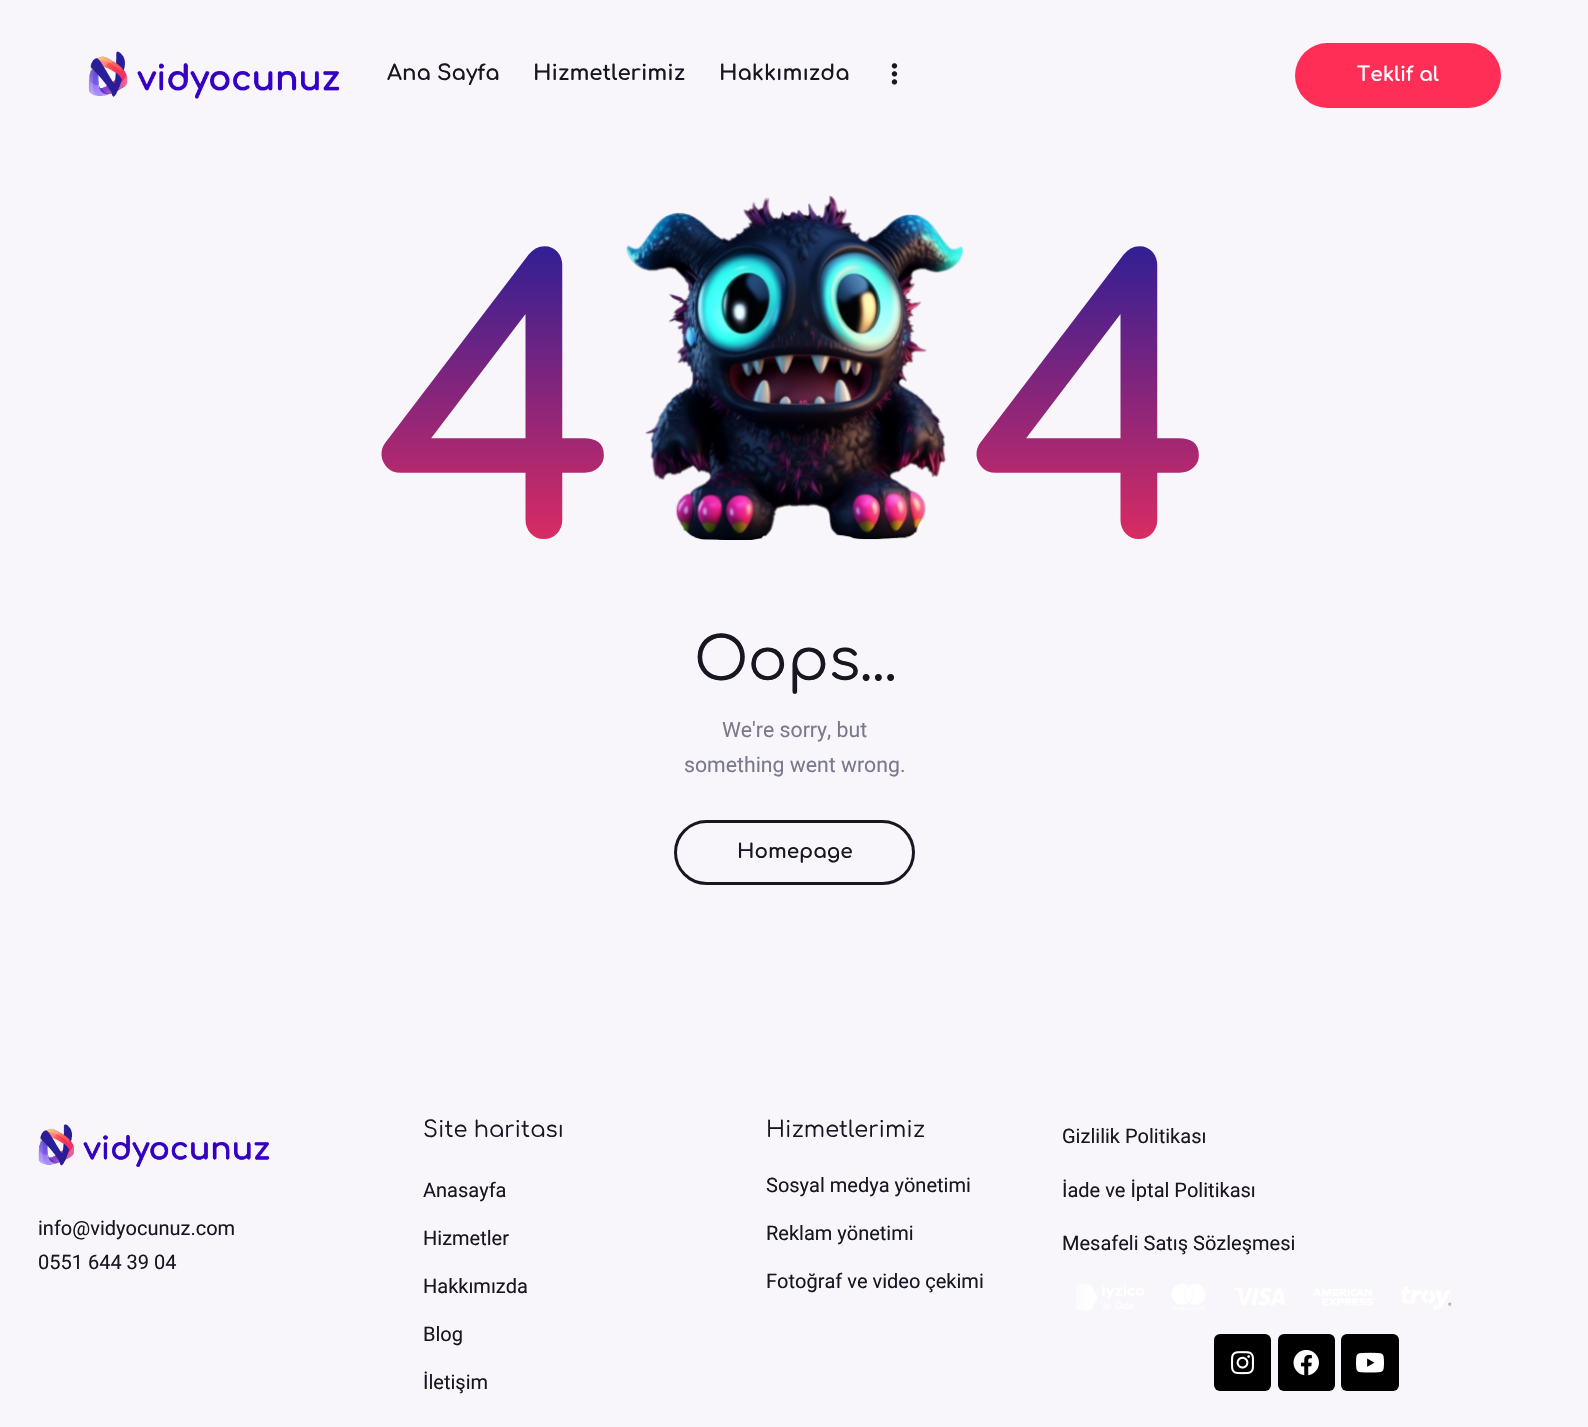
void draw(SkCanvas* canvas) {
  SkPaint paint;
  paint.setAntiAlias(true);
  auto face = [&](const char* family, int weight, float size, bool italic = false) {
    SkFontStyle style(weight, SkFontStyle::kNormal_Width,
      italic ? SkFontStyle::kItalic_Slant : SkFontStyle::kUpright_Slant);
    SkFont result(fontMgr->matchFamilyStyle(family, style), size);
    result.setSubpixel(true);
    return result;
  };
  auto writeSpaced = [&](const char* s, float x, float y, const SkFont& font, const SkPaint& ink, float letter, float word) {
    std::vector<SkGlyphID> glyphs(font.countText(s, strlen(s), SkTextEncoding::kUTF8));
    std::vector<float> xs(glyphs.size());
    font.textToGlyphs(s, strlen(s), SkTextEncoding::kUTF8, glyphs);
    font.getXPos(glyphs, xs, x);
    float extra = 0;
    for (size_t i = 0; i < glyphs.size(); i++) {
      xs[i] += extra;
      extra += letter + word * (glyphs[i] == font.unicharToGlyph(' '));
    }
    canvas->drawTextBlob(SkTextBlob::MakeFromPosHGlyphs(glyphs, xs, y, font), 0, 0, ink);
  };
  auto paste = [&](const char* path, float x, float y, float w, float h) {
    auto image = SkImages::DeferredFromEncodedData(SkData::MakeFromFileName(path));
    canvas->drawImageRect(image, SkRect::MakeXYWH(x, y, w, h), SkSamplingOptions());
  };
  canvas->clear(0xfff8f6fb);
  paste("img/1.png", 88, 51, 252, 48);
  paste("img/2.png", 891, 63, 7, 22);
  paint.setColor(0xffff2e57);
  canvas->drawRoundRect(SkRect::MakeXYWH(1295, 43, 206, 65), 32.5f, 32.5f, paint);
  paste("img/3.png", 626, 195, 338, 345);
  paint.setStroke(true);
  paint.setStrokeWidth(3);
  paint.setColor(0xff181621);
  canvas->drawRoundRect(SkRect::MakeXYWH(675.5f, 821.5f, 238, 62), 31, 31, paint);
  paste("img/4.png", 38, 1124, 232, 43);
  paste("img/5.png", 1076, 1284, 376, 27);
  paint.setStroke(false);
  paint.setColor(0xff000000);
  canvas->drawRoundRect(SkRect::MakeXYWH(1214, 1334, 57, 57), 6, 6, paint);
  paste("img/6.png", 1231, 1351, 24, 24);
  canvas->drawRoundRect(SkRect::MakeXYWH(1278, 1334, 57, 57), 6, 6, paint);
  paste("img/7.png", 1293, 1349, 26, 27);
  canvas->drawRoundRect(SkRect::MakeXYWH(1341, 1334, 58, 57), 6, 6, paint);
  paste("img/8.png", 1356, 1352, 28, 21);
  auto f0 = face("Comfortaa", 700, 21.25f);
  paint.setColor(0xff181621);
  {
    const struct { const char* s; float x, y; } items[] = {
      {"Ana Sayfa", 387, 80},
      {"Hizmetlerimiz", 533, 80},
      {"Hakkımızda", 719, 80},
    };
    for (auto [s, x, y] : items) {
      canvas->drawString(s, x, y, f0, paint);
    }
  }
  auto f1 = face("Comfortaa", 700, 20);
  paint.setColor(0xffffffff);
  canvas->drawString("Teklif al", 1357, 81, f1, paint);
  auto f2 = face("Comfortaa", 700, 375);
  {
    const SkColor colors[] = {0xffff2e57, 0xff291e97};
    const float stops[] = {0, 1};
    const SkPoint ends[] = {{497, 605}, {497, 230}};
    paint.setShader(SkGradientShader::MakeLinear(ends, colors, stops, 2, SkTileMode::kClamp));
    paint.setAlpha(255);
  }
  canvas->drawString("4", 374, 539, f2, paint);
  {
    const SkColor colors[] = {0xff291e97, 0xffff2e57};
    const float stops[] = {0, 1};
    const SkPoint ends[] = {{1092, 230}, {1092, 605}};
    paint.setShader(SkGradientShader::MakeLinear(ends, colors, stops, 2, SkTileMode::kClamp));
    paint.setAlpha(255);
  }
  canvas->drawString("4", 969, 539, f2, paint);
  auto f3 = face("Comfortaa", 400, 59);
  paint.setShader(nullptr);
  paint.setColor(0xff181621);
  writeSpaced("Oops...", 694, 680, f3, paint, -0.5f, 0);
  auto f4 = face("Roboto", 400, 21.25f);
  paint.setColor(0xff7b798b);
  canvas->drawString("We're sorry, but", 722, 737, f4, paint);
  canvas->drawString("something went wrong.", 684, 772, f4, paint);
  paint.setColor(0xff181621);
  canvas->drawString("Homepage", 737, 858, f1, paint);
  auto f5 = face("Roboto", 400, 20);
  canvas->drawString("info@vidyocunuz.com", 38, 1235, f5, paint);
  canvas->drawString("0551 644 39 04", 38, 1269, f5, paint);
  auto f6 = face("Comfortaa", 400, 22.5f);
  canvas->drawString("Site haritası", 423, 1137, f6, paint);
  {
    const struct { const char* s; float x, y; } items[] = {
      {"Anasayfa", 423, 1197},
      {"Hizmetler", 423, 1245},
      {"Hakkımızda", 423, 1293},
      {"Blog", 423, 1341},
      {"İletişim", 423, 1389},
    };
    for (auto [s, x, y] : items) {
      canvas->drawString(s, x, y, f5, paint);
    }
  }
  canvas->drawString("Hizmetlerimiz", 766, 1137, f6, paint);
  {
    const struct { const char* s; float x, y; } items[] = {
      {"Sosyal medya yönetimi", 766, 1192},
      {"Reklam yönetimi", 766, 1240},
      {"Fotoğraf ve video çekimi", 766, 1288},
      {"Gizlilik Politikası", 1062, 1143},
      {"İade ve İptal Politikası", 1062, 1197},
      {"Mesafeli Satış Sözleşmesi", 1062, 1250},
    };
    for (auto [s, x, y] : items) {
      canvas->drawString(s, x, y, f5, paint);
    }
  }
}
